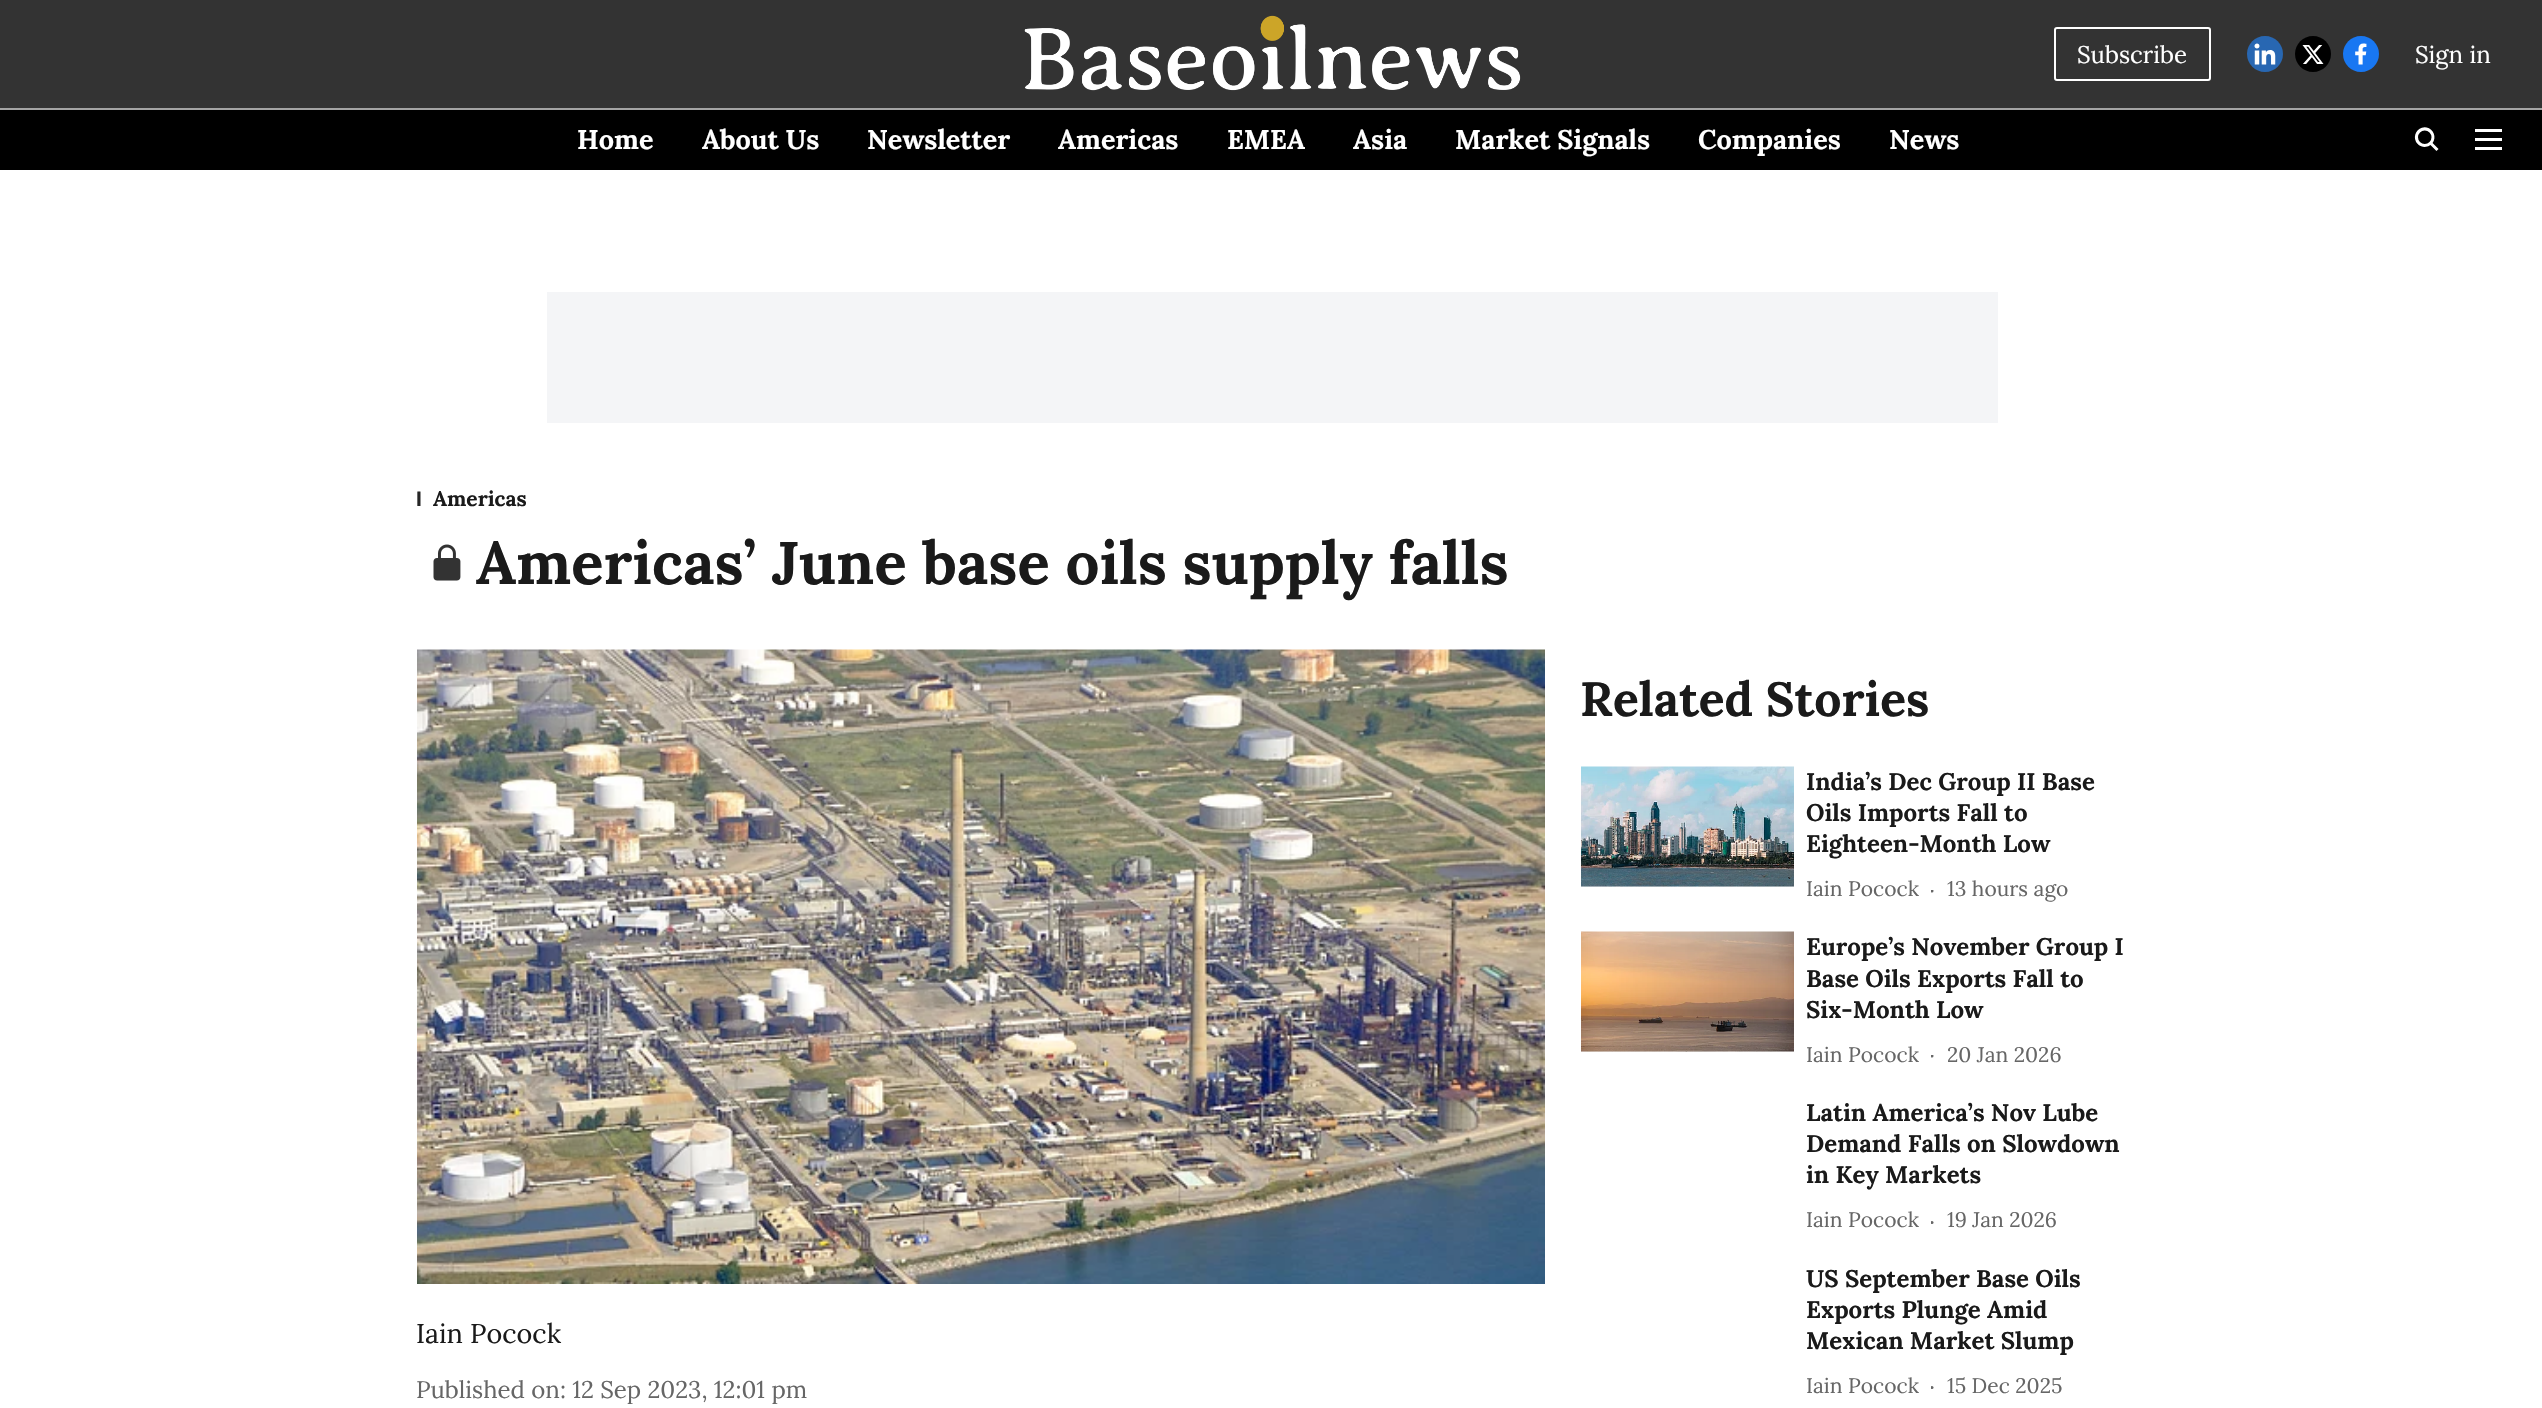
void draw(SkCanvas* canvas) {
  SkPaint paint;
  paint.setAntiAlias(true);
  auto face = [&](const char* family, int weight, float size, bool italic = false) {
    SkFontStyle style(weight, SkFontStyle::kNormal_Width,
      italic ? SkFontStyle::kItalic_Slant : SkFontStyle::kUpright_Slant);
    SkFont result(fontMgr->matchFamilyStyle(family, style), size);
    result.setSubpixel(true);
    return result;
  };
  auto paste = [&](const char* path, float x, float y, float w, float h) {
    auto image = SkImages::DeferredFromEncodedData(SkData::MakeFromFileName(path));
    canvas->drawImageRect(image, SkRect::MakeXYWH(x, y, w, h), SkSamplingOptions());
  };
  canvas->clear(0xffffffff);
  paint.setColor(0xff333333);
  canvas->drawRect(SkRect::MakeXYWH(0, 0, 2542, 108), paint);
  paint.setColor(0xffa4a4a4);
  canvas->drawRect(SkRect::MakeXYWH(0, 108, 2542, 2), paint);
  paste("img/1.png", 1024, 15, 497, 76);
  paint.setStroke(true);
  paint.setStrokeWidth(2);
  paint.setColor(0xffffffff);
  canvas->drawRoundRect(SkRect::MakeXYWH(2055, 28, 155, 52), 2, 2, paint);
  paste("img/2.png", 2247, 36, 36, 36);
  paste("img/3.png", 2295, 36, 36, 36);
  paste("img/4.png", 2343, 36, 36, 36);
  paint.setStroke(false);
  paint.setColor(0xff000000);
  canvas->drawRect(SkRect::MakeXYWH(0, 110, 2542, 60), paint);
  paste("img/5.png", 2414, 127, 25, 24);
  paste("img/6.png", 2475, 129, 27, 21);
  paint.setColor(0xfff4f5f7);
  canvas->drawRect(SkRect::MakeXYWH(547, 292, 1451, 131), paint);
  paste("img/7.png", 433, 544, 28, 37);
  paste("img/8.png", 417, 649, 1128, 635);
  paint.setColor(0xfff0f0f0);
  canvas->drawRect(SkRect::MakeXYWH(1581, 886, 213, 1), paint);
  paste("img/9.png", 1581, 766, 213, 121);
  canvas->save();
  canvas->clipRect(SkRect::MakeXYWH(1931, 890, 5, 5));
  paint.setColor(0xff666666);
  canvas->drawCircle(1932, 891, 1.5f, paint);
  canvas->restore();
  paint.setColor(0xfff0f0f0);
  canvas->drawRect(SkRect::MakeXYWH(1581, 1051, 213, 1), paint);
  paste("img/10.png", 1581, 931, 213, 121);
  canvas->save();
  canvas->clipRect(SkRect::MakeXYWH(1931, 1055, 5, 5));
  paint.setColor(0xff666666);
  canvas->drawCircle(1932, 1056, 1.5f, paint);
  canvas->restore();
  canvas->save();
  canvas->clipRect(SkRect::MakeXYWH(1931, 1221, 5, 5));
  canvas->drawCircle(1932, 1222.5f, 1.5f, paint);
  canvas->restore();
  canvas->save();
  canvas->clipRect(SkRect::MakeXYWH(1931, 1386, 5, 5));
  canvas->drawCircle(1932, 1387.5f, 1.5f, paint);
  canvas->restore();
  auto f0 = face("Lora", 400, 24);
  paint.setColor(0xffffffff);
  canvas->drawString("Subscribe", 2077, 63, f0, paint);
  canvas->drawString("Sign in", 2415, 63, f0, paint);
  auto f1 = face("Lora", 700, 27);
  {
    const struct { const char* s; float x, y; } items[] = {
      {"Home", 577, 149},
      {"About Us", 702, 149},
      {"Newsletter", 867, 149},
      {"Americas", 1058, 149},
      {"EMEA", 1227, 149},
      {"Asia", 1353, 149},
      {"Market Signals", 1455, 149},
      {"Companies", 1698, 149},
      {"News", 1889, 149},
    };
    for (auto [s, x, y] : items) {
      canvas->drawString(s, x, y, f1, paint);
    }
  }
  auto f2 = face("Liberation Sans", 700, 21);
  paint.setColor(0xff262626);
  canvas->drawString("I", 416, 506, f2, paint);
  auto f3 = face("Lora", 700, 21);
  paint.setColor(0xff1a1a1a);
  canvas->drawString("Americas", 433, 506, f3, paint);
  auto f4 = face("Lora", 700, 60);
  canvas->drawString("Americas’ June base oils supply falls", 476, 584, f4, paint);
  auto f5 = face("Lora", 700, 48);
  canvas->drawString("Related Stories", 1580, 716, f5, paint);
  auto f6 = face("Lora", 700, 24);
  {
    const struct { const char* s; float x, y; } items[] = {
      {"India’s Dec Group II Base", 1806, 790},
      {"Oils Imports Fall to", 1806, 821},
      {"Eighteen-Month Low", 1806, 852},
    };
    for (auto [s, x, y] : items) {
      canvas->drawString(s, x, y, f6, paint);
    }
  }
  auto f7 = face("Lora", 400, 21);
  paint.setColor(0xff666666);
  canvas->drawString("Iain Pocock", 1806, 896, f7, paint);
  canvas->drawString("13 hours ago", 1947, 896, f7, paint);
  paint.setColor(0xff1a1a1a);
  {
    const struct { const char* s; float x, y; } items[] = {
      {"Europe’s November Group I", 1806, 955},
      {"Base Oils Exports Fall to", 1806, 987},
      {"Six-Month Low", 1806, 1018},
    };
    for (auto [s, x, y] : items) {
      canvas->drawString(s, x, y, f6, paint);
    }
  }
  paint.setColor(0xff666666);
  canvas->drawString("Iain Pocock", 1806, 1062, f7, paint);
  canvas->drawString("20 Jan 2026", 1947, 1062, f7, paint);
  paint.setColor(0xff1a1a1a);
  {
    const struct { const char* s; float x, y; } items[] = {
      {"Latin America’s Nov Lube", 1806, 1121},
      {"Demand Falls on Slowdown", 1806, 1152},
      {"in Key Markets", 1806, 1183},
    };
    for (auto [s, x, y] : items) {
      canvas->drawString(s, x, y, f6, paint);
    }
  }
  paint.setColor(0xff666666);
  canvas->drawString("Iain Pocock", 1806, 1227, f7, paint);
  canvas->drawString("19 Jan 2026", 1947, 1227, f7, paint);
  paint.setColor(0xff1a1a1a);
  {
    const struct { const char* s; float x, y; } items[] = {
      {"US September Base Oils", 1806, 1287},
      {"Exports Plunge Amid", 1806, 1318},
      {"Mexican Market Slump", 1806, 1349},
    };
    for (auto [s, x, y] : items) {
      canvas->drawString(s, x, y, f6, paint);
    }
  }
  paint.setColor(0xff666666);
  canvas->drawString("Iain Pocock", 1806, 1393, f7, paint);
  canvas->drawString("15 Dec 2025", 1947, 1393, f7, paint);
  auto f8 = face("Lora", 400, 27);
  paint.setColor(0xff1a1a1a);
  canvas->drawString("Iain Pocock", 416, 1343, f8, paint);
  paint.setColor(0xff666666);
  canvas->drawString("Published on: 12 Sep 2023, 12:01 pm", 416, 1398, f0, paint);
}
